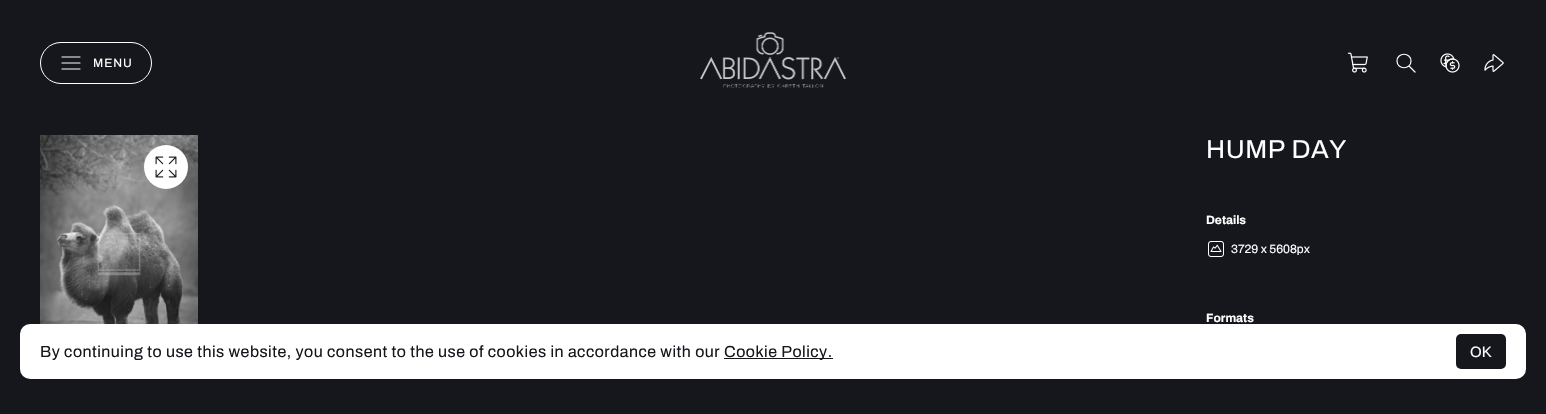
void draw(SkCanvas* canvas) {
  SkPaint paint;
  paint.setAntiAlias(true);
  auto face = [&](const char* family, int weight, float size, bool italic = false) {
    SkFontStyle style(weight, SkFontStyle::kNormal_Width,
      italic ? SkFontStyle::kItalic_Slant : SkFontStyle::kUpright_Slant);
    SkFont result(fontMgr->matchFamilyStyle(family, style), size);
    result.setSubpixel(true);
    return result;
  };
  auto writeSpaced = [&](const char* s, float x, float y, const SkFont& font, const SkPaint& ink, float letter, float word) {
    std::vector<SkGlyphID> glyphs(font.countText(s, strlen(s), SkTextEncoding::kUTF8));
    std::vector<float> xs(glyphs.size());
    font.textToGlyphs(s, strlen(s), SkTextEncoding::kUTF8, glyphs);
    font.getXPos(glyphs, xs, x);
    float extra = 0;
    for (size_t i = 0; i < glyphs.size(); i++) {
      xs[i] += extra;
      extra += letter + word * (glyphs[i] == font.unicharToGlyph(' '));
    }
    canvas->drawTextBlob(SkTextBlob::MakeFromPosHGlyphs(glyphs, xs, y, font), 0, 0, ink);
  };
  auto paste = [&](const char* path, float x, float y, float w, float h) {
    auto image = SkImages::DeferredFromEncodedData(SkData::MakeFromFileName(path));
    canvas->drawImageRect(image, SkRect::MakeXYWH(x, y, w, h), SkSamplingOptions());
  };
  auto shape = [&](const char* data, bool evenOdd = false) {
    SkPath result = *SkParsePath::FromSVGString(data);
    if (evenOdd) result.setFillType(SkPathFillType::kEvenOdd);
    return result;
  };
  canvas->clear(0xff16161d);
  paint.setStroke(true);
  paint.setStrokeWidth(1);
  paint.setColor(0xffffffff);
  canvas->drawRoundRect(SkRect::MakeXYWH(40.5f, 42.5f, 111, 41), 20.5f, 20.5f, paint);
  paint.setStrokeWidth(1.2f);
  paint.setStrokeCap(SkPaint::kRound_Cap);
  paint.setStrokeJoin(SkPaint::kRound_Join);
  canvas->drawPath(shape("M62 63H80M62 57H80M62 69H80"), paint);
  paste("img/1.png", 700, 32, 147, 56);
  paste("img/2.png", 1347, 52, 21, 21);
  canvas->drawPath(shape("M1415 72L1409 66M1411 61C1411 70 1397 70 1397 61C1397 52 1411 52 1411 61Z"), paint);
  paste("img/3.png", 1440, 53, 20, 20);
  paste("img/4.png", 1484, 54, 20, 18);
  paste("img/5.png", 40, 135, 158, 189);
  paint.setStroke(false);
  canvas->drawCircle(166, 167, 22, paint);
  paste("img/6.png", 155, 156, 22, 22);
  paste("img/7.png", 1208, 241, 16, 16);
  canvas->drawRoundRect(SkRect::MakeXYWH(20, 324, 1506, 55), 10, 10, paint);
  paint.setColor(0xff16161d);
  canvas->drawRect(SkRect::MakeXYWH(724, 358, 109, 1), paint);
  canvas->drawRoundRect(SkRect::MakeXYWH(1456, 334, 50, 35), 5, 5, paint);
  auto f0 = face("Archivo", 400, 12);
  paint.setColor(0xffffffff);
  writeSpaced("MENU", 93, 67, f0, paint, 1, 0);
  auto f1 = face("Archivo", 400, 26);
  writeSpaced("HUMP DAY", 1206, 158, f1, paint, 0.5f, 0);
  auto f2 = face("Archivo", 700, 12);
  canvas->drawString("Details", 1206, 224, f2, paint);
  canvas->drawString("3729 x 5608px", 1231, 253, f0, paint);
  canvas->drawString("Formats", 1206, 322, f2, paint);
  auto f3 = face("Archivo", 400, 16);
  paint.setColor(0xff16161d);
  writeSpaced("By continuing to use this website, you consent to the use of cookies in accordance with our", 40, 357, f3, paint, 0.5f, 0);
  writeSpaced("Cookie Policy.", 724, 357, f3, paint, 0.5f, 0);
  auto f4 = face("Liberation Sans", 400, 15);
  paint.setColor(0xffffffff);
  canvas->drawString("OK", 1470, 357, f4, paint);
}
